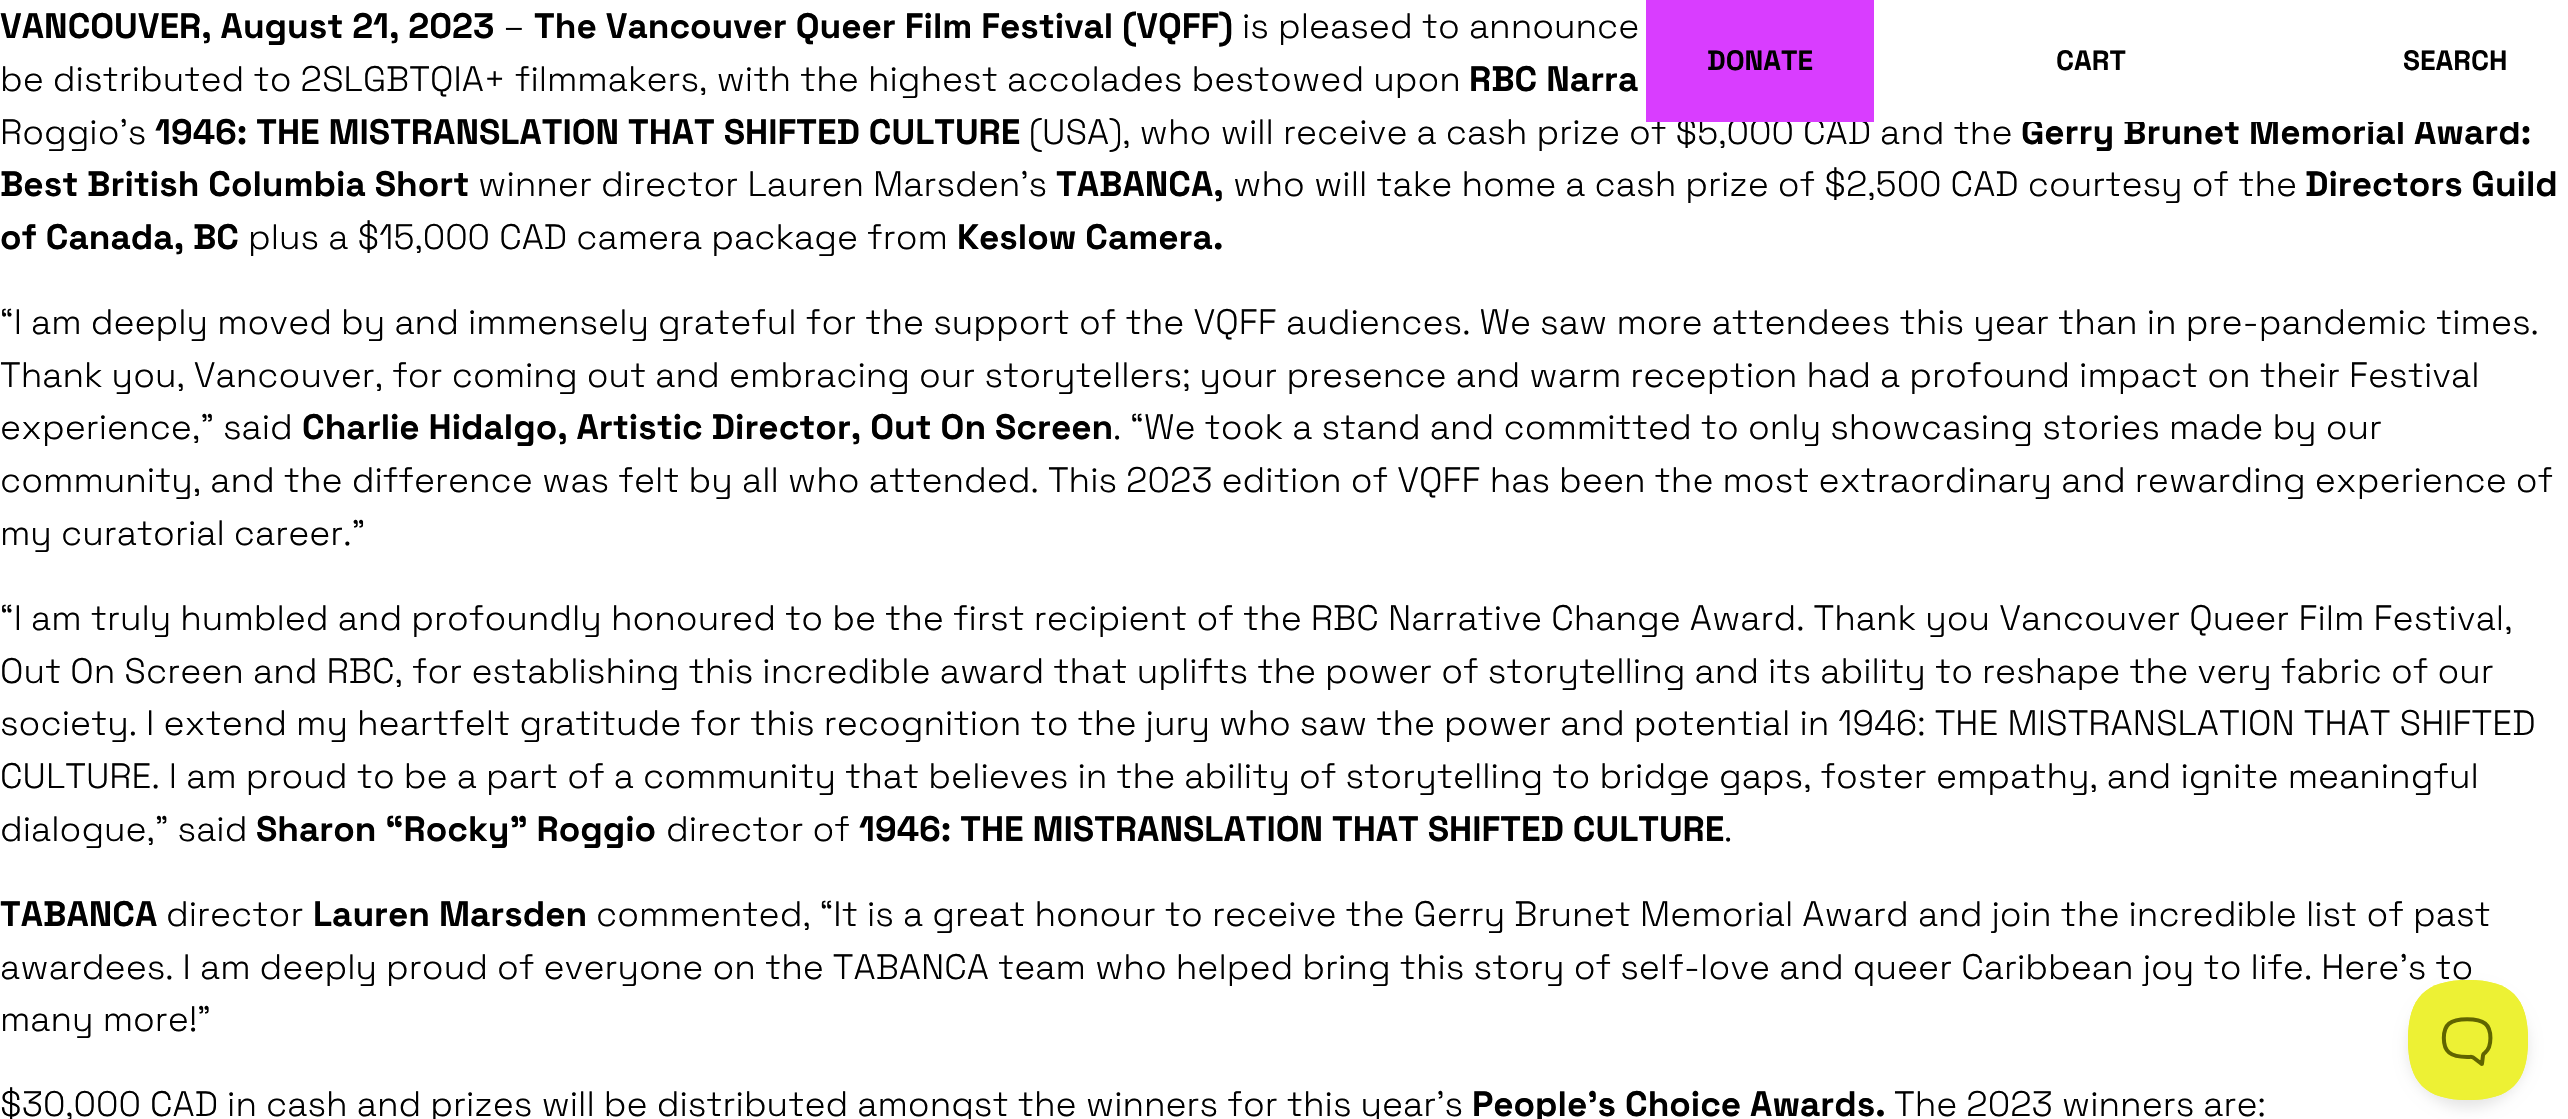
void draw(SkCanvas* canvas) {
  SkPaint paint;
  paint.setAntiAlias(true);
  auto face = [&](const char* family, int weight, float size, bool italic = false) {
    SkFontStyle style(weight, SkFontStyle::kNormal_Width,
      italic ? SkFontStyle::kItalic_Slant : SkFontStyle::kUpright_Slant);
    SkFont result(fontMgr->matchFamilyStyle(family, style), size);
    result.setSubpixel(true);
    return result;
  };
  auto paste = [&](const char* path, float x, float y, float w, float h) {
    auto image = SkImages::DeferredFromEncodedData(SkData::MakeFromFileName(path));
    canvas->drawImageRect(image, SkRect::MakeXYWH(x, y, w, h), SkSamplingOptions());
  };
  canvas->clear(0xffffffff);
  paint.setColor(0x1a000000);
  paint.setMaskFilter(SkMaskFilter::MakeBlur(kNormal_SkBlurStyle, 7));
  canvas->drawRoundRect(SkRect::MakeXYWH(2408, 988, 120, 120), 60, 60, paint);
  paint.setMaskFilter(nullptr);
  auto f0 = face("Space Grotesk", 700, 35.2f);
  paint.setColor(0xff000000);
  canvas->drawString("VANCOUVER, August 21, 2023", 0, 38, f0, paint);
  auto f1 = face("Space Grotesk", 300, 35.2f);
  canvas->drawString("–", 503, 38, f1, paint);
  canvas->drawString("The Vancouver Queer Film Festival (VQFF)", 534, 38, f0, paint);
  canvas->drawString("is pleased to announce", 1242, 38, f1, paint);
  canvas->drawString("be distributed to 2SLGBTQIA+ filmmakers, with the highest accolades bestowed upon", 0, 91, f1, paint);
  canvas->drawString("RBC Narra", 1469, 91, f0, paint);
  canvas->drawString("Roggio’s", 0, 144, f1, paint);
  canvas->drawString("1946: THE MISTRANSLATION THAT SHIFTED CULTURE", 155, 144, f0, paint);
  canvas->drawString("(USA), who will receive a cash prize of $5,000 CAD and the", 1029, 144, f1, paint);
  canvas->drawString("Gerry Brunet Memorial Award:", 2021, 144, f0, paint);
  canvas->drawString("Best British Columbia Short", 0, 196, f0, paint);
  canvas->drawString("winner director Lauren Marsden’s", 478, 196, f1, paint);
  canvas->drawString("TABANCA,", 1056, 196, f0, paint);
  canvas->drawString("who will take home a cash prize of $2,500 CAD courtesy of the", 1233, 196, f1, paint);
  canvas->drawString("Directors Guild", 2305, 196, f0, paint);
  canvas->drawString("of Canada, BC", 0, 249, f0, paint);
  canvas->drawString("plus a $15,000 CAD camera package from", 248, 249, f1, paint);
  canvas->drawString("Keslow Camera.", 957, 249, f0, paint);
  {
    const struct { const char* s; float x, y; } items[] = {
      {"“I am deeply moved by and immensely grateful for the support of the VQFF audiences. We saw more attendees this year than in pre-pandemic times.", 0, 334},
      {"Thank you, Vancouver, for coming out and embracing our storytellers; your presence and warm reception had a profound impact on their Festival", 0, 387},
      {"experience,” said", 0, 439},
    };
    for (auto [s, x, y] : items) {
      canvas->drawString(s, x, y, f1, paint);
    }
  }
  canvas->drawString("Charlie Hidalgo, Artistic Director, Out On Screen", 302, 439, f0, paint);
  {
    const struct { const char* s; float x, y; } items[] = {
      {". “We took a stand and committed to only showcasing stories made by our", 1113, 439},
      {"community, and the difference was felt by all who attended. This 2023 edition of VQFF has been the most extraordinary and rewarding experience of", 0, 492},
      {"my curatorial career.”", 0, 545},
      {"“I am truly humbled and profoundly honoured to be the first recipient of the RBC Narrative Change Award. Thank you Vancouver Queer Film Festival,", 0, 630},
      {"Out On Screen and RBC, for establishing this incredible award that uplifts the power of storytelling and its ability to reshape the very fabric of our", 0, 683},
      {"society. I extend my heartfelt gratitude for this recognition to the jury who saw the power and potential in 1946: THE MISTRANSLATION THAT SHIFTED", 0, 735},
      {"CULTURE. I am proud to be a part of a community that believes in the ability of storytelling to bridge gaps, foster empathy, and ignite meaningful", 0, 788},
      {"dialogue,” said", 0, 841},
    };
    for (auto [s, x, y] : items) {
      canvas->drawString(s, x, y, f1, paint);
    }
  }
  canvas->drawString("Sharon “Rocky” Roggio", 256, 841, f0, paint);
  canvas->drawString("director of", 666, 841, f1, paint);
  canvas->drawString("1946: THE MISTRANSLATION THAT SHIFTED CULTURE", 859, 841, f0, paint);
  canvas->drawString(".", 1724, 841, f1, paint);
  canvas->drawString("TABANCA", 0, 926, f0, paint);
  canvas->drawString("director", 166, 926, f1, paint);
  canvas->drawString("Lauren Marsden", 313, 926, f0, paint);
  {
    const struct { const char* s; float x, y; } items[] = {
      {"commented, “It is a great honour to receive the Gerry Brunet Memorial Award and join the incredible list of past", 596, 926},
      {"awardees. I am deeply proud of everyone on the TABANCA team who helped bring this story of self-love and queer Caribbean joy to life. Here’s to", 0, 979},
      {"many more!”", 0, 1031},
      {"$30,000 CAD in cash and prizes will be distributed amongst the winners for this year’s", 0, 1116},
    };
    for (auto [s, x, y] : items) {
      canvas->drawString(s, x, y, f1, paint);
    }
  }
  canvas->drawString("People’s Choice Awards.", 1472, 1116, f0, paint);
  canvas->drawString("The 2023 winners are:", 1894, 1116, f1, paint);
  paint.setColor(0xffd93dff);
  canvas->drawRect(SkRect::MakeXYWH(1646, 0, 228, 122), paint);
  auto f2 = face("Space Grotesk", 700, 28);
  paint.setColor(0xff000000);
  canvas->drawString("DONATE", 1707, 70, f2, paint);
  paint.setColor(0xffffffff);
  canvas->drawRect(SkRect::MakeXYWH(1939, 118, 205, 4), paint);
  paint.setColor(0xff000000);
  canvas->drawString("CART", 2056, 70, f2, paint);
  paint.setColor(0xffffffff);
  canvas->drawRect(SkRect::MakeXYWH(2229, 118, 290, 4), paint);
  paint.setColor(0xff000000);
  canvas->drawString("SEARCH", 2403, 70, f2, paint);
  paste("img/1.png", 2408, 980, 120, 120);
}
